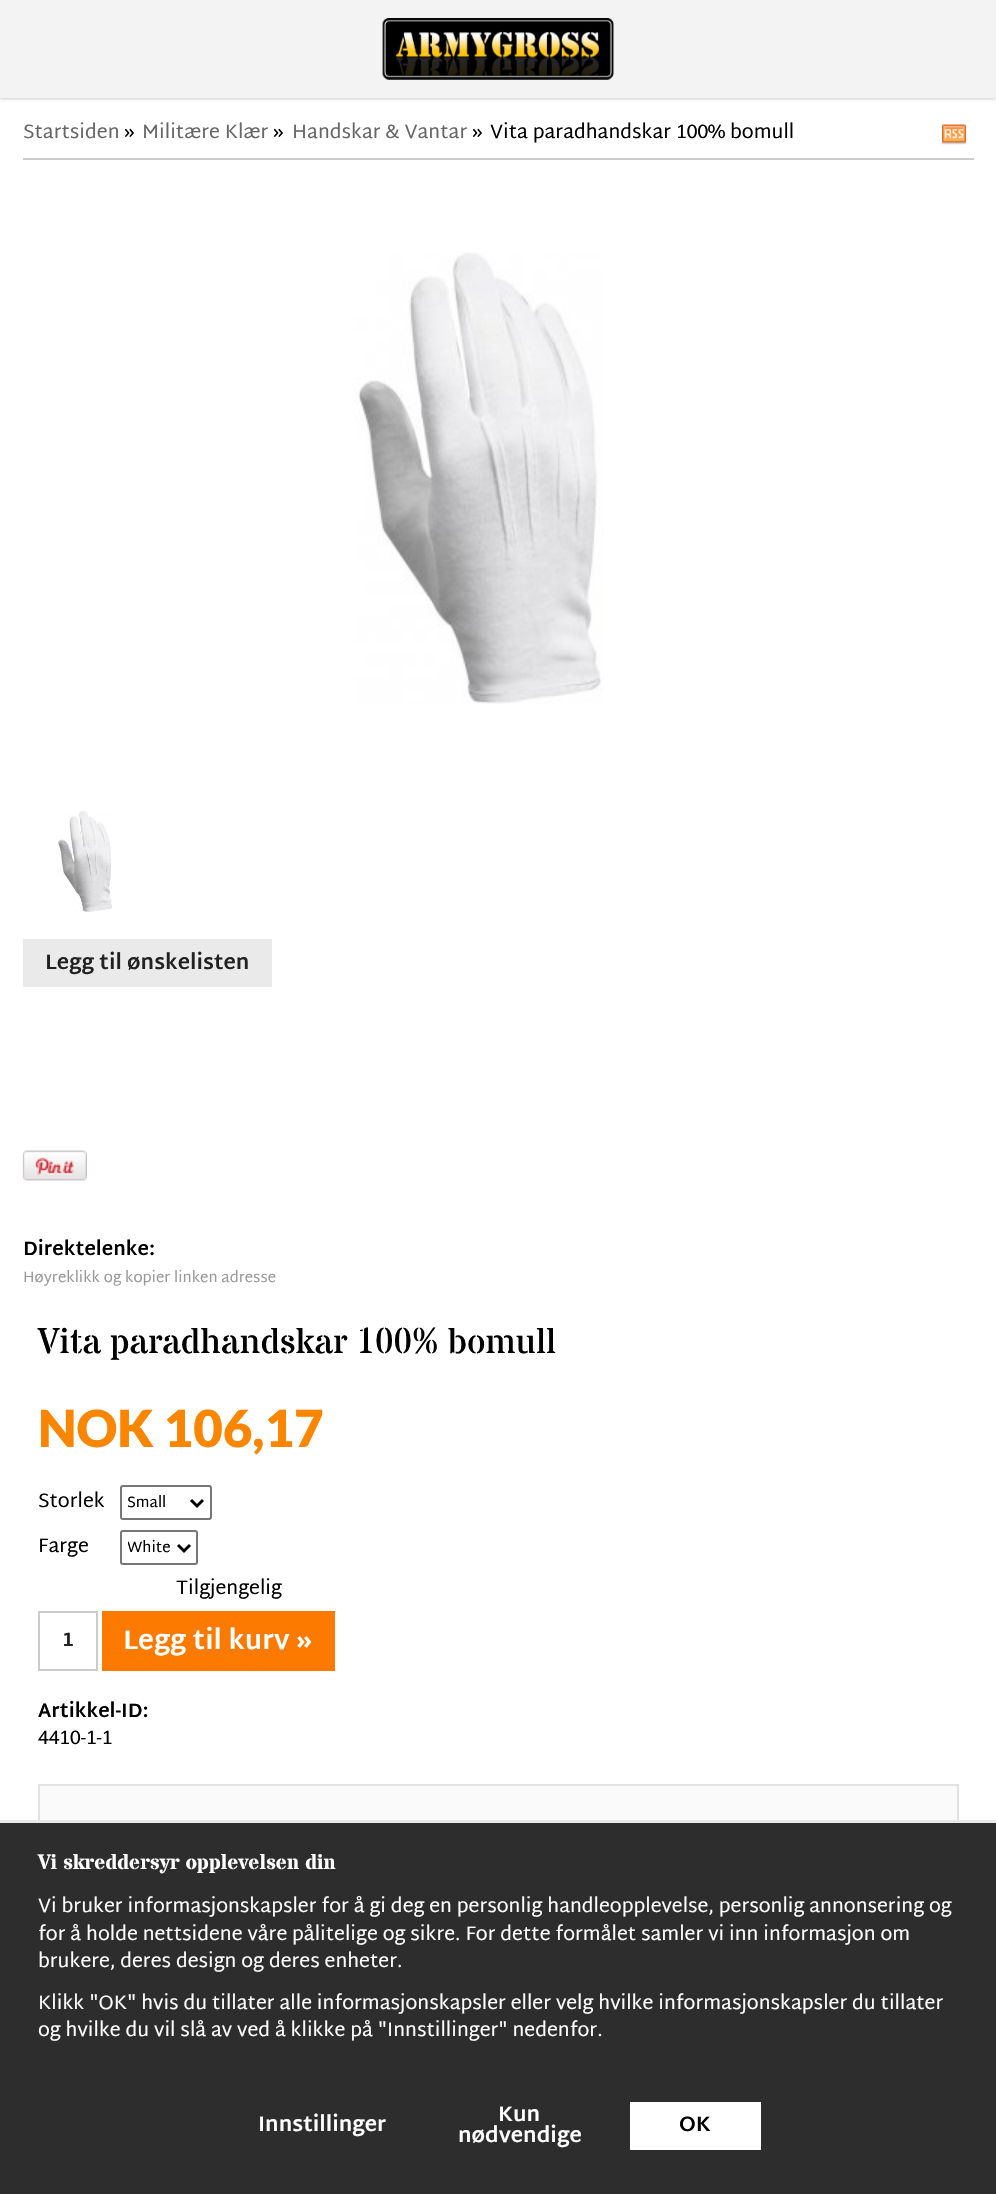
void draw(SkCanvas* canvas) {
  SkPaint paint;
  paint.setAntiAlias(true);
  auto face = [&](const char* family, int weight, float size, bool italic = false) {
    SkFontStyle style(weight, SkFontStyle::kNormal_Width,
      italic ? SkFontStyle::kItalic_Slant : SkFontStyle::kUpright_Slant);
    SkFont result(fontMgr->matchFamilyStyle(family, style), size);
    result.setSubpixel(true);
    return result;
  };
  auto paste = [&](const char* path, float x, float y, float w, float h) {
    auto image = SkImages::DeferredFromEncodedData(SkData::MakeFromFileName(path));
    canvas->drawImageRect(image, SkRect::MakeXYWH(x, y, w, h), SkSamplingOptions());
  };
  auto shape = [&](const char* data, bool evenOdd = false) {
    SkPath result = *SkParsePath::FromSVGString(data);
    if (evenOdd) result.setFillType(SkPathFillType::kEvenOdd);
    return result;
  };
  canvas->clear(0xffffffff);
  paint.setColor(0x33000000);
  paint.setMaskFilter(SkMaskFilter::MakeBlur(kNormal_SkBlurStyle, 1.5f));
  canvas->drawRect(SkRect::MakeXYWH(0, 2, 996, 97), paint);
  paint.setMaskFilter(nullptr);
  paint.setColor(0xfff4f3f3);
  canvas->drawRect(SkRect::MakeXYWH(0, 0, 996, 98), paint);
  paste("img/1.png", 382, 18, 232, 62);
  paint.setColor(0xffcccccc);
  canvas->drawRect(SkRect::MakeXYWH(23, 158, 951, 2), paint);
  paste("img/2.png", 942, 124, 24, 21);
  paste("img/3.png", 354, 252, 250, 452);
  paste("img/4.png", 57, 811, 55, 101);
  paint.setColor(0xffeaeaea);
  canvas->drawRect(SkRect::MakeXYWH(23, 939, 249, 48), paint);
  paste("img/5.png", 22, 1150, 65, 31);
  paint.setStroke(true);
  paint.setStrokeWidth(2);
  paint.setColor(0xff767676);
  canvas->drawRoundRect(SkRect::MakeXYWH(121, 1486, 90, 33), 2, 2, paint);
  paint.setStrokeWidth(3);
  paint.setColor(0xff000000);
  canvas->drawPath(shape("M191 1500L197 1506L203 1500"), paint);
  paint.setStrokeWidth(2);
  paint.setColor(0xff767676);
  canvas->drawRoundRect(SkRect::MakeXYWH(121, 1531, 76, 33), 2, 2, paint);
  paint.setStrokeWidth(3);
  paint.setColor(0xff000000);
  canvas->drawPath(shape("M178 1545L184 1551L190 1545"), paint);
  paint.setStrokeWidth(2);
  paint.setColor(0xffcccccc);
  canvas->drawRect(SkRect::MakeXYWH(39, 1612, 58, 58), paint);
  paint.setStroke(false);
  paint.setColor(0xfffc7a00);
  canvas->drawRect(SkRect::MakeXYWH(102, 1611, 233, 60), paint);
  paint.setColor(0xfffafafa);
  canvas->drawRect(SkRect::MakeXYWH(40, 1786, 917, 34), paint);
  paint.setStroke(true);
  paint.setColor(0xffe2e2e2);
  canvas->drawRect(SkRect::MakeXYWH(39, 1785, 919, 212), paint);
  paint.setStroke(false);
  {
    const struct { float x, y, w, h; SkColor color; } items[] = {
      {0, 1823, 996, 371, 0xff2d2d2d},
      {0, 1820, 996, 3, 0xffe9e9e9},
      {630, 2102, 131, 48, 0xffffffff},
    };
    for (auto [x, y, w, h, color] : items) {
      paint.setColor(color);
      canvas->drawRect(SkRect::MakeXYWH(x, y, w, h), paint);
    }
  }
  auto f0 = face("Martel Sans", 400, 19.5f);
  paint.setColor(0xff666666);
  canvas->drawString("Startsiden", 23, 138, f0, paint);
  paint.setColor(0xff000000);
  canvas->drawString("»", 124, 138, f0, paint);
  paint.setColor(0xff666666);
  canvas->drawString("Militære Klær", 142, 138, f0, paint);
  paint.setColor(0xff000000);
  canvas->drawString("»", 273, 138, f0, paint);
  paint.setColor(0xff666666);
  canvas->drawString("Handskar & Vantar", 292, 138, f0, paint);
  paint.setColor(0xff000000);
  canvas->drawString("»", 472, 138, f0, paint);
  canvas->drawString("Vita paradhandskar 100% bomull", 490, 138, f0, paint);
  auto f1 = face("Martel Sans", 700, 21);
  paint.setColor(0xff222222);
  canvas->drawString("Legg til ønskelisten", 45, 969, f1, paint);
  auto f2 = face("Martel Sans", 700, 19.5f);
  paint.setColor(0xff000000);
  canvas->drawString("Direktelenke:", 23, 1255, f2, paint);
  auto f3 = face("Martel Sans", 400, 15);
  paint.setColor(0xff999999);
  canvas->drawString("Høyreklikk og kopier linken adresse", 23, 1282, f3, paint);
  auto f4 = face("Stardos Stencil", 400, 36);
  paint.setColor(0xff000000);
  canvas->drawString("Vita paradhandskar 100% bomull", 38, 1353, f4, paint);
  auto f5 = face("Lato", 900, 51);
  paint.setColor(0xfffa8600);
  canvas->drawString("NOK 106,17", 38, 1447, f5, paint);
  paint.setColor(0xff000000);
  canvas->drawString("Storlek", 38, 1507, f0, paint);
  canvas->drawString("Small", 127, 1507, f3, paint);
  canvas->drawString("Farge", 38, 1552, f0, paint);
  canvas->save();
  canvas->clipRect(SkRect::MakeXYWH(128, 1532, 45, 31));
  canvas->drawString("White", 127, 1552, f3, paint);
  canvas->restore();
  canvas->drawString("Tilgjengelig", 176, 1594, f0, paint);
  paint.setColor(0xff222222);
  canvas->drawString("1", 62, 1646, f2, paint);
  auto f6 = face("Martel Sans", 700, 27);
  paint.setColor(0xffffffff);
  canvas->drawString("Legg til kurv »", 123, 1649, f6, paint);
  paint.setColor(0xff000000);
  canvas->drawString("Artikkel-ID:", 38, 1717, f2, paint);
  canvas->drawString("4410-1-1", 38, 1744, f0, paint);
  auto f7 = face("Stardos Stencil", 700, 21);
  paint.setColor(0xffffffff);
  canvas->drawString("Vi skreddersyr opplevelsen din", 38, 1869, f7, paint);
  {
    const struct { const char* s; float x, y; } items[] = {
      {"Vi bruker informasjonskapsler for å gi deg en personlig handleopplevelse, personlig annonsering og", 38, 1912},
      {"for å holde nettsidene våre pålitelige og sikre. For dette formålet samler vi inn informasjon om", 38, 1940},
      {"brukere, deres design og deres enheter.", 38, 1967},
      {"Klikk \"OK\" hvis du tillater alle informasjonskapsler eller velg hvilke informasjonskapsler du tillater", 38, 2009},
      {"og hvilke du vil slå av ved å klikke på \"Innstillinger\" nedenfor.", 38, 2036},
    };
    for (auto [s, x, y] : items) {
      canvas->drawString(s, x, y, f0, paint);
    }
  }
  {
    const struct { const char* s; float x, y; } items[] = {
      {"Innstillinger", 258, 2131},
      {"Kun", 498, 2121},
      {"nødvendige", 458, 2142},
    };
    for (auto [s, x, y] : items) {
      canvas->drawString(s, x, y, f1, paint);
    }
  }
  paint.setColor(0xff000000);
  canvas->drawString("OK", 679, 2131, f1, paint);
}
